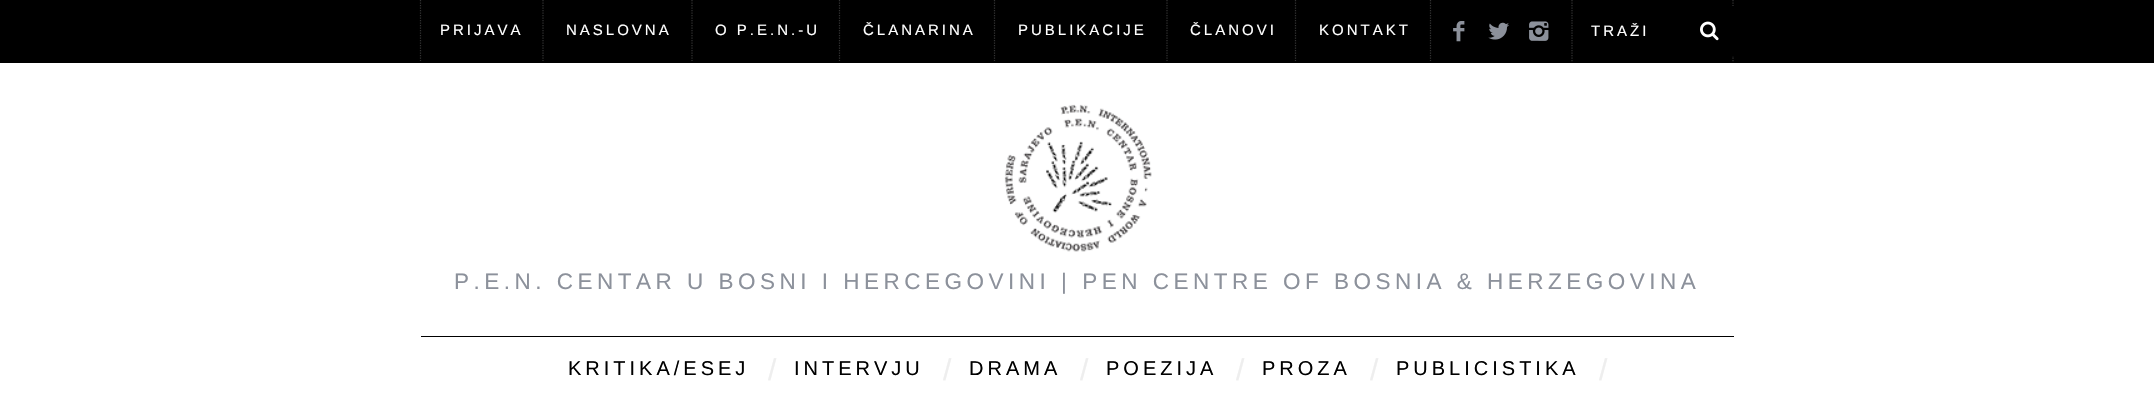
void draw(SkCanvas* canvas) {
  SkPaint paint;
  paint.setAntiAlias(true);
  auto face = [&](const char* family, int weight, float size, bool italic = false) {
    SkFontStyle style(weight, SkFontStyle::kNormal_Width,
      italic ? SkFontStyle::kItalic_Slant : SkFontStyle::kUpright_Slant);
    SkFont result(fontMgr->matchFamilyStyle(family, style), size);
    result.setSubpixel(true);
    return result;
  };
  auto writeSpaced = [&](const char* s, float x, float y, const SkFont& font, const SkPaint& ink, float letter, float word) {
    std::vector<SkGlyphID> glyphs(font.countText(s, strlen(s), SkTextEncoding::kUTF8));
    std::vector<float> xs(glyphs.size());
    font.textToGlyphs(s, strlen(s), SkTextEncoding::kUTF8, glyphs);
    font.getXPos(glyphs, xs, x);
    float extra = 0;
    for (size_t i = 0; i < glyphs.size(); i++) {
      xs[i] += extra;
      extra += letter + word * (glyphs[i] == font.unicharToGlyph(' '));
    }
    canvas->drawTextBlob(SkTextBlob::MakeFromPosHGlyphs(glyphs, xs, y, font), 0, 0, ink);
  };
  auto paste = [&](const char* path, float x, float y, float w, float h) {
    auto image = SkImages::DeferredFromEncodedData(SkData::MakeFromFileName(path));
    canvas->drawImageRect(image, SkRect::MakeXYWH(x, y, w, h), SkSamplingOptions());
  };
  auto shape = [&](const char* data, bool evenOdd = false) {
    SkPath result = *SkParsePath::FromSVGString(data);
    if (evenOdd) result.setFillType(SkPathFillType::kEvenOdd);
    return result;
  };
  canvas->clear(0xffffffff);
  paint.setColor(0xff000000);
  canvas->drawRect(SkRect::MakeXYWH(0, 0, 2154, 63), paint);
  paint.setStroke(true);
  paint.setStrokeWidth(1.2f);
  paint.setColor(0xff333333);
  paint.setPathEffect(SkDashPathEffect::Make({{1.25f, 1.25f}}, 0));
  canvas->drawPath(shape("M543 0V61"), paint);
  paint.setPathEffect(nullptr);
  paint.setPathEffect(SkDashPathEffect::Make({{1.25f, 1.25f}}, 0));
  canvas->drawPath(shape("M420.5 0V61"), paint);
  paint.setPathEffect(nullptr);
  paint.setPathEffect(SkDashPathEffect::Make({{1.25f, 1.25f}}, 0));
  canvas->drawPath(shape("M692 0V61"), paint);
  paint.setPathEffect(nullptr);
  paint.setPathEffect(SkDashPathEffect::Make({{1.25f, 1.25f}}, 0));
  canvas->drawPath(shape("M839.5 0V61"), paint);
  paint.setPathEffect(nullptr);
  paint.setPathEffect(SkDashPathEffect::Make({{1.25f, 1.25f}}, 0));
  canvas->drawPath(shape("M994.5 0V61"), paint);
  paint.setPathEffect(nullptr);
  paint.setPathEffect(SkDashPathEffect::Make({{1.25f, 1.25f}}, 0));
  canvas->drawPath(shape("M1167 0V61"), paint);
  paint.setPathEffect(nullptr);
  paint.setPathEffect(SkDashPathEffect::Make({{1.25f, 1.25f}}, 0));
  canvas->drawPath(shape("M1295.5 0V61"), paint);
  paint.setPathEffect(nullptr);
  paint.setPathEffect(SkDashPathEffect::Make({{1.25f, 1.25f}}, 0));
  canvas->drawPath(shape("M1430.5 0V61"), paint);
  paint.setPathEffect(nullptr);
  paste("img/1.png", 1453, 21, 12, 21);
  paste("img/2.png", 1488, 22, 21, 18);
  paste("img/3.png", 1529, 21, 20, 20);
  paint.setPathEffect(SkDashPathEffect::Make({{1.25f, 1.25f}}, 0));
  canvas->drawPath(shape("M1733 0V62.5"), paint);
  paint.setPathEffect(nullptr);
  paint.setPathEffect(SkDashPathEffect::Make({{1.25f, 1.25f}}, 0));
  canvas->drawPath(shape("M1572 0V62.5"), paint);
  paint.setPathEffect(nullptr);
  paint.setStroke(false);
  paint.setColor(0xff000000);
  canvas->drawRect(SkRect::MakeXYWH(1732, 6, 2, 50), paint);
  paste("img/4.png", 1700, 21, 19, 20);
  paste("img/5.png", 1004, 104, 148, 148);
  canvas->drawRect(SkRect::MakeXYWH(421, 336, 1313, 1), paint);
  auto f0 = face("Liberation Sans", 400, 15);
  paint.setColor(0xffffffff);
  {
    const struct { const char* s; float x, y; } items[] = {
      {"PRIJAVA", 440, 35},
      {"NASLOVNA", 566, 35},
      {"O P.E.N.-U", 715, 35},
      {"ČLANARINA", 863, 35},
      {"PUBLIKACIJE", 1018, 35},
      {"ČLANOVI", 1190, 35},
      {"KONTAKT", 1319, 35},
      {"TRAŽI", 1591, 36},
    };
    for (auto [s, x, y] : items) {
      writeSpaced(s, x, y, f0, paint, 3, 0);
    }
  }
  auto f1 = face("Liberation Sans", 400, 22.5f);
  paint.setColor(0xff8c919b);
  writeSpaced("P.E.N. CENTAR U BOSNI I HERCEGOVINI | PEN CENTRE OF BOSNIA & HERZEGOVINA", 454, 289, f1, paint, 4.5f, 0);
  auto f2 = face("Liberation Sans", 400, 20);
  paint.setColor(0xff000000);
  writeSpaced("KRITIKA/ESEJ", 568, 375, f2, paint, 4, 0);
  auto f3 = face("Liberation Sans", 400, 30);
  paint.setColor(0xffeeeeee);
  writeSpaced("/", 768, 380, f3, paint, 4, 0);
  paint.setColor(0xff000000);
  writeSpaced("INTERVJU", 794, 375, f2, paint, 4, 0);
  paint.setColor(0xffeeeeee);
  writeSpaced("/", 943, 380, f3, paint, 4, 0);
  paint.setColor(0xff000000);
  writeSpaced("DRAMA", 969, 375, f2, paint, 4, 0);
  paint.setColor(0xffeeeeee);
  writeSpaced("/", 1080, 380, f3, paint, 4, 0);
  paint.setColor(0xff000000);
  writeSpaced("POEZIJA", 1106, 375, f2, paint, 4, 0);
  paint.setColor(0xffeeeeee);
  writeSpaced("/", 1236, 380, f3, paint, 4, 0);
  paint.setColor(0xff000000);
  writeSpaced("PROZA", 1262, 375, f2, paint, 4, 0);
  paint.setColor(0xffeeeeee);
  writeSpaced("/", 1370, 380, f3, paint, 4, 0);
  paint.setColor(0xff000000);
  writeSpaced("PUBLICISTIKA", 1396, 375, f2, paint, 4, 0);
  paint.setColor(0xffeeeeee);
  writeSpaced("/", 1599, 380, f3, paint, 4, 0);
}
